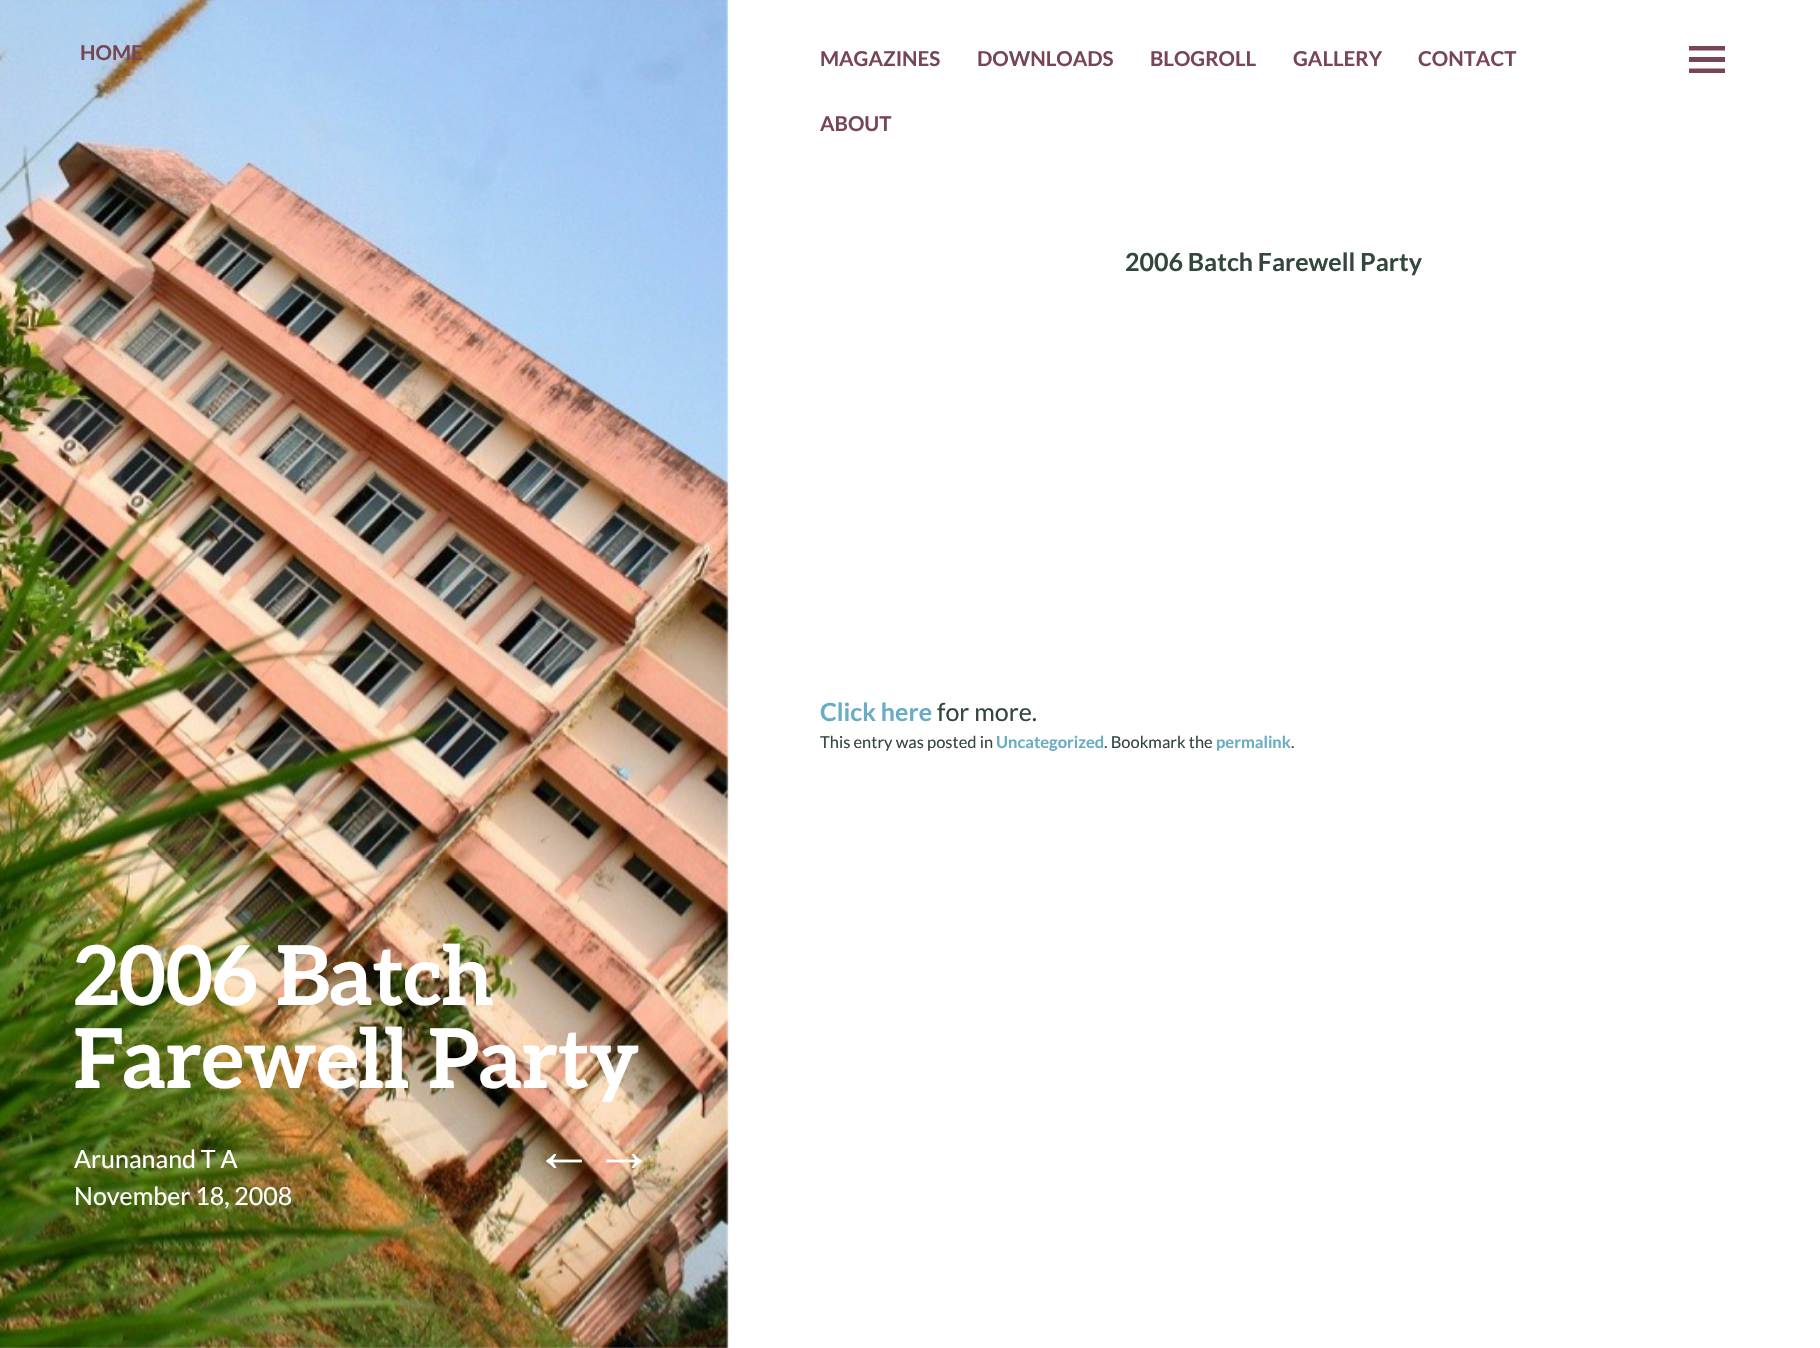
void draw(SkCanvas* canvas) {
  SkPaint paint;
  paint.setAntiAlias(true);
  auto face = [&](const char* family, int weight, float size, bool italic = false) {
    SkFontStyle style(weight, SkFontStyle::kNormal_Width,
      italic ? SkFontStyle::kItalic_Slant : SkFontStyle::kUpright_Slant);
    SkFont result(fontMgr->matchFamilyStyle(family, style), size);
    result.setSubpixel(true);
    return result;
  };
  auto paste = [&](const char* path, float x, float y, float w, float h) {
    auto image = SkImages::DeferredFromEncodedData(SkData::MakeFromFileName(path));
    canvas->drawImageRect(image, SkRect::MakeXYWH(x, y, w, h), SkSamplingOptions());
  };
  auto shape = [&](const char* data, bool evenOdd = false) {
    SkPath result = *SkParsePath::FromSVGString(data);
    if (evenOdd) result.setFillType(SkPathFillType::kEvenOdd);
    return result;
  };
  canvas->clear(0xffffffff);
  paint.setColor(0xff774553);
  canvas->drawPath(shape("M1725 46V50.5H1689V46ZM1689 57H1725V62H1689ZM1689 68.5H1725V73H1689Z"), paint);
  paint.setColor(0xfff6f7f6);
  canvas->drawRect(SkRect::MakeXYWH(0, 0, 728, 1348), paint);
  paste("img/1.png", 0, 0, 729, 1348);
  auto f0 = face("Lato", 700, 20.5f);
  paint.setColor(0xff774553);
  {
    const struct { const char* s; float x, y; } items[] = {
      {"HOME", 80, 60},
      {"MAGAZINES", 820, 66},
      {"DOWNLOADS", 977, 66},
      {"BLOGROLL", 1150, 66},
      {"GALLERY", 1293, 66},
      {"CONTACT", 1418, 66},
      {"ABOUT", 820, 131},
    };
    for (auto [s, x, y] : items) {
      canvas->drawString(s, x, y, f0, paint);
    }
  }
  auto f1 = face("Lato", 700, 25);
  paint.setColor(0xff33473d);
  canvas->drawString("2006 Batch Farewell Party", 1125, 271, f1, paint);
  paint.setColor(0xff68adc3);
  canvas->drawString("Click here", 820, 721, f1, paint);
  auto f2 = face("Lato", 400, 25);
  paint.setColor(0xff33473d);
  canvas->drawString("for more.", 937, 721, f2, paint);
  auto f3 = face("Lato", 400, 16.5f);
  canvas->drawString("This entry was posted in", 820, 748, f3, paint);
  auto f4 = face("Lato", 700, 16.5f);
  paint.setColor(0xff68adc3);
  canvas->drawString("Uncategorized", 996, 748, f4, paint);
  paint.setColor(0xff33473d);
  canvas->drawString(". Bookmark the", 1104, 748, f3, paint);
  paint.setColor(0xff68adc3);
  canvas->drawString("permalink", 1216, 748, f4, paint);
  paint.setColor(0xff33473d);
  canvas->drawString(".", 1291, 748, f3, paint);
  auto f5 = face("Aleo", 700, 82.5f);
  paint.setColor(0xffffffff);
  canvas->drawString("2006 Batch", 74, 1005, f5, paint);
  canvas->drawString("Farewell Party", 74, 1088, f5, paint);
  canvas->drawString("Arunanand T A", 74, 1168, f2, paint);
  canvas->drawString("November 18, 2008", 74, 1205, f2, paint);
  auto f6 = face("Liberation Sans", 700, 60);
  canvas->drawString("←→", 534, 1171, f6, paint);
}
